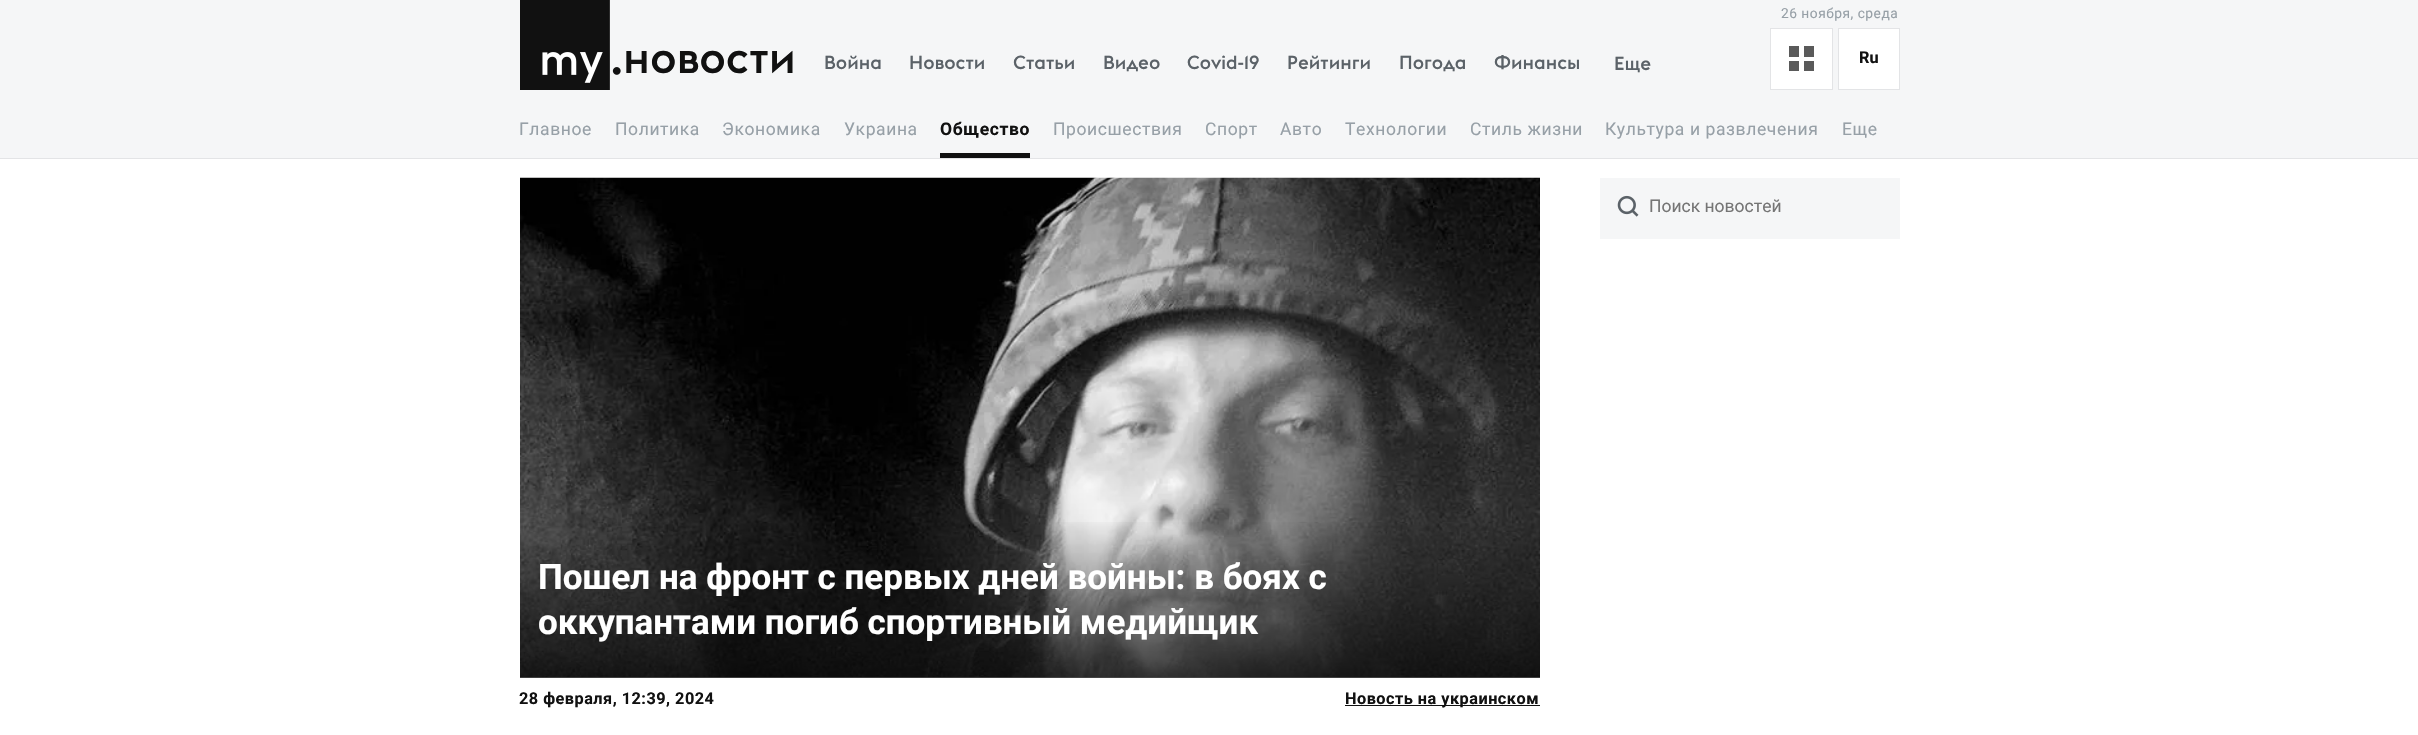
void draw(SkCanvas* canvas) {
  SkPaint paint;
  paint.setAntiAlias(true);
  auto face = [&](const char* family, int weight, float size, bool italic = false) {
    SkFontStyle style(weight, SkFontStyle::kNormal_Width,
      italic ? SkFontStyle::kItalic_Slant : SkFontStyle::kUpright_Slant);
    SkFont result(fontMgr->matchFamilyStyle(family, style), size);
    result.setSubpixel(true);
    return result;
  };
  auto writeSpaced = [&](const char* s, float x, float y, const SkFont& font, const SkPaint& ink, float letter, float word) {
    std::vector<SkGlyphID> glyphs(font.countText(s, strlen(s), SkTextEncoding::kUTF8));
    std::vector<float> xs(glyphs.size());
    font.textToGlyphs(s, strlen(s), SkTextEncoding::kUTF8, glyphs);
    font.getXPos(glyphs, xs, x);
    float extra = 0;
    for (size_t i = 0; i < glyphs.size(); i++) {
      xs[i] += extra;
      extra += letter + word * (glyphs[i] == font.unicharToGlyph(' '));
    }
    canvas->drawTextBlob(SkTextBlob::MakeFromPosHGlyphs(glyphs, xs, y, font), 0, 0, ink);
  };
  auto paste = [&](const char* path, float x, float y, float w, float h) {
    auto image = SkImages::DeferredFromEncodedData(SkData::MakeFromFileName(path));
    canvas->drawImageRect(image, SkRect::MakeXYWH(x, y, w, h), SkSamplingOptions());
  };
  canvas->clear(0xffffffff);
  paint.setColor(0xfff5f6f7);
  canvas->drawRect(SkRect::MakeXYWH(0, 0, 2418, 158), paint);
  paint.setColor(0xffe3e4e6);
  canvas->drawRect(SkRect::MakeXYWH(0, 158, 2418, 1), paint);
  paste("img/1.png", 520, 0, 101, 90);
  paint.setColor(0xffffffff);
  canvas->drawRect(SkRect::MakeXYWH(1770.5f, 28.5f, 62, 61), paint);
  paint.setStroke(true);
  paint.setStrokeWidth(1);
  paint.setColor(0xffe3e4e6);
  canvas->drawRect(SkRect::MakeXYWH(1770.5f, 28.5f, 62, 61), paint);
  paint.setStroke(false);
  {
    const struct { float x, y, w, h; SkColor color; } items[] = {
      {1789, 46, 10, 11, 0xff5a5a5a},
      {1804, 46, 10, 11, 0xff5a5a5a},
      {1804, 61, 10, 10, 0xff5a5a5a},
      {1789, 61, 10, 10, 0xff5a5a5a},
    };
    for (auto [x, y, w, h, color] : items) {
      paint.setColor(color);
      canvas->drawRect(SkRect::MakeXYWH(x, y, w, h), paint);
    }
  }
  paint.setColor(0xffffffff);
  canvas->drawRect(SkRect::MakeXYWH(1838.5f, 28.5f, 61, 61), paint);
  paint.setStroke(true);
  paint.setColor(0xffe3e4e6);
  canvas->drawRect(SkRect::MakeXYWH(1838.5f, 28.5f, 61, 61), paint);
  paint.setStroke(false);
  paint.setColor(0xff111111);
  canvas->drawRect(SkRect::MakeXYWH(940, 153, 90, 5), paint);
  paint.setColor(0xfff5f6f7);
  canvas->drawRect(SkRect::MakeXYWH(1600, 178, 300, 61), paint);
  paste("img/2.png", 1617, 195, 22, 22);
  paste("img/3.png", 520, 177, 1020, 501);
  {
    const SkColor colors[] = {0x00000000, 0xb3000000};
    const float stops[] = {0, 1};
    const SkPoint ends[] = {{1030, 517}, {1030, 678}};
    paint.setShader(SkGradientShader::MakeLinear(ends, colors, stops, 2, SkTileMode::kClamp));
    paint.setAlpha(255);
  }
  canvas->drawRect(SkRect::MakeXYWH(520, 522, 1020, 156), paint);
  paint.setShader(nullptr);
  paint.setColor(0xff111111);
  canvas->drawRect(SkRect::MakeXYWH(1345, 705, 195, 1), paint);
  auto f0 = face("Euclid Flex", 500, 44);
  canvas->drawString("новости", 623, 73, f0, paint);
  auto f1 = face("Euclid Flex", 500, 18.75f);
  paint.setColor(0xff5b6268);
  {
    const struct { const char* s; float x, y; } items[] = {
      {"Война", 824, 69},
      {"Новости", 909, 69},
      {"Статьи", 1013, 69},
      {"Видео", 1103, 69},
      {"Covid-19", 1187, 69},
      {"Рейтинги", 1287, 69},
      {"Погода", 1399, 69},
      {"Финансы", 1494, 69},
      {"Еще", 1614, 70},
    };
    for (auto [s, x, y] : items) {
      canvas->drawString(s, x, y, f1, paint);
    }
  }
  auto f2 = face("Roboto", 400, 13.75f);
  paint.setColor(0xff97a0a7);
  writeSpaced("26 ноября, среда", 1781, 18, f2, paint, 0.5f, 0);
  auto f3 = face("Roboto", 700, 16.25f);
  paint.setColor(0xff111111);
  canvas->drawString("Ru", 1859, 63, f3, paint);
  auto f4 = face("Roboto", 400, 17.5f);
  paint.setColor(0xff97a0a7);
  {
    const struct { const char* s; float x, y; } items[] = {
      {"Главное", 519, 135},
      {"Политика", 615, 135},
      {"Экономика", 722, 135},
      {"Украина", 844, 135},
    };
    for (auto [s, x, y] : items) {
      writeSpaced(s, x, y, f4, paint, 0.6f, 0);
    }
  }
  auto f5 = face("Roboto", 700, 17.5f);
  paint.setColor(0xff111111);
  writeSpaced("Общество", 940, 135, f5, paint, 0.6f, 0);
  paint.setColor(0xff97a0a7);
  {
    const struct { const char* s; float x, y; } items[] = {
      {"Происшествия", 1053, 135},
      {"Спорт", 1205, 135},
      {"Авто", 1280, 135},
      {"Технологии", 1345, 135},
      {"Стиль жизни", 1470, 135},
      {"Культура и развлечения", 1605, 135},
      {"Еще", 1842, 135},
    };
    for (auto [s, x, y] : items) {
      writeSpaced(s, x, y, f4, paint, 0.6f, 0);
    }
  }
  paint.setColor(0xff757575);
  canvas->drawString("Поиск новостей", 1649, 212, f4, paint);
  auto f6 = face("Roboto", 700, 35);
  paint.setColor(0xffffffff);
  canvas->drawString("Пошел на фронт с первых дней войны: в боях с", 538, 589, f6, paint);
  canvas->drawString("оккупантами погиб спортивный медийщик", 538, 634, f6, paint);
  paint.setColor(0xff111111);
  writeSpaced("28 февраля, 12:39, 2024", 519, 704, f3, paint, 0.5f, 0);
  writeSpaced("Новость на украинском", 1345, 704, f3, paint, 0.5f, 0);
}
